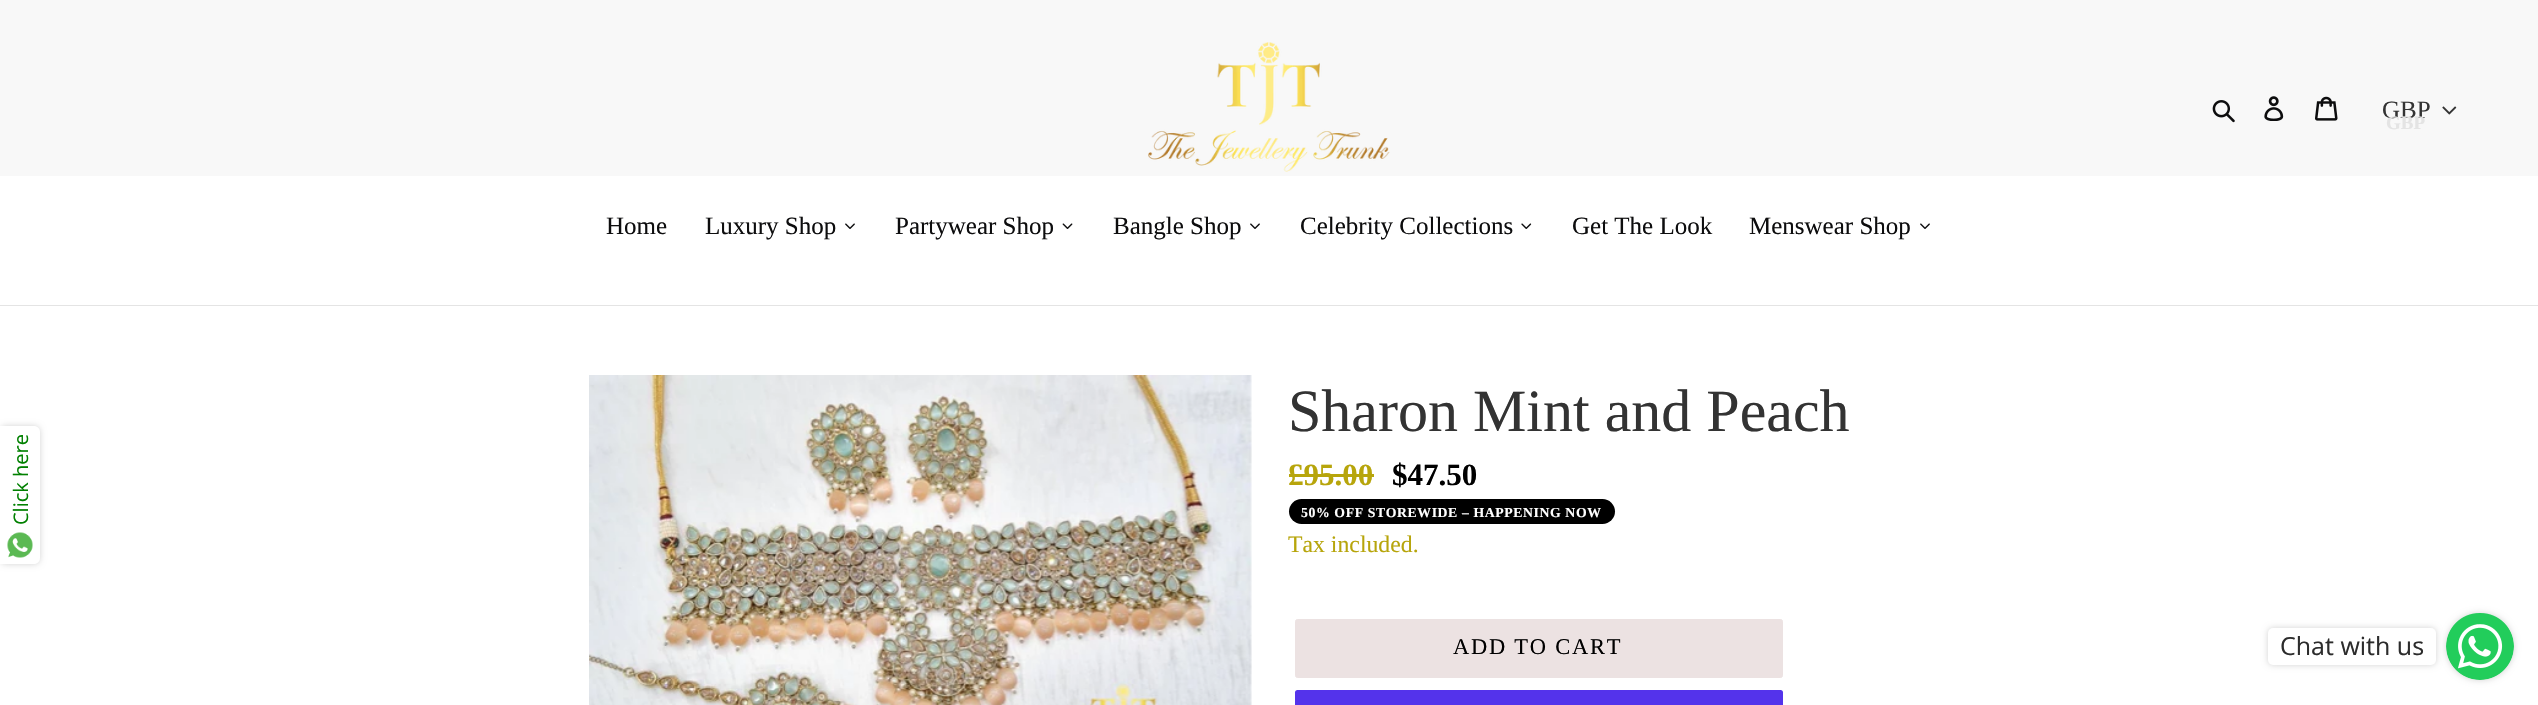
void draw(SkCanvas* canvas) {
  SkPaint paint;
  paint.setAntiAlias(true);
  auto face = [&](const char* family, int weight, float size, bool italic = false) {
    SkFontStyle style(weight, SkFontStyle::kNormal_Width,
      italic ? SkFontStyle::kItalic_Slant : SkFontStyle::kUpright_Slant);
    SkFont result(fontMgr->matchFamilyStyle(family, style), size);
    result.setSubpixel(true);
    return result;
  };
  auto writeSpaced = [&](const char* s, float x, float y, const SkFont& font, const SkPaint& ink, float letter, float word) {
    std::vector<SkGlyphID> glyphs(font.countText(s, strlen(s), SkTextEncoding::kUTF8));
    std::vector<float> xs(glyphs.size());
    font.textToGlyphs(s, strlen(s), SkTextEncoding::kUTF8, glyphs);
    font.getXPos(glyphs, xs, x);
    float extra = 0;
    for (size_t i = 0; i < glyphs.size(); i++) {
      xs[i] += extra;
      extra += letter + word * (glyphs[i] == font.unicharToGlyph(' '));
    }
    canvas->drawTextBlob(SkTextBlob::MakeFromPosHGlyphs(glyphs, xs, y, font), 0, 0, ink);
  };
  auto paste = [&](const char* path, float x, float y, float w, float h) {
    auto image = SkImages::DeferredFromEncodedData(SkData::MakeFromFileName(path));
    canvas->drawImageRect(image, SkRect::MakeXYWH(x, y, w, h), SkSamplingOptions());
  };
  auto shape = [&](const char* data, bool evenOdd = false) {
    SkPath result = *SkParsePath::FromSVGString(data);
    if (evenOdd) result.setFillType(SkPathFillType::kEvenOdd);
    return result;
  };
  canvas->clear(0xffffffff);
  paint.setColor(0xfff8f8f8);
  canvas->drawRect(SkRect::MakeXYWH(0, 0, 2538, 176), paint);
  paste("img/1.png", 1148, 42, 242, 130);
  paste("img/2.png", 2212, 100, 23, 23);
  paste("img/3.png", 2264, 96, 20, 25);
  paste("img/4.png", 2315, 96, 23, 25);
  paste("img/5.png", 2442, 106, 15, 9);
  paint.setColor(0xffe4e4e4);
  canvas->drawRect(SkRect::MakeXYWH(0, 305, 2538, 1), paint);
  paste("img/6.png", 845, 223, 10, 6);
  paste("img/7.png", 1062, 223, 11, 6);
  paste("img/6.png", 1250, 223, 10, 6);
  paste("img/8.png", 1521, 223, 11, 6);
  paste("img/6.png", 1920, 223, 10, 6);
  paint.setColor(0xffd3d3d3);
  paint.setMaskFilter(SkMaskFilter::MakeBlur(kNormal_SkBlurStyle, 3));
  canvas->drawRoundRect(SkRect::MakeXYWH(0, 426, 40, 138), 6, 6, paint);
  paint.setMaskFilter(nullptr);
  paint.setColor(0xffffffff);
  canvas->drawPath(shape("M0 426H34C37.5 426 40 428.5 40 432V558C40 561.5 37.5 564 34 564H0Z"), paint);
  paste("img/9.png", 7, 532, 26, 26);
  paste("img/10.png", 589, 375, 663, 330);
  paint.setColor(0xffb7a50b);
  canvas->drawRect(SkRect::MakeXYWH(1289, 474, 85, 3), paint);
  paint.setColor(0xff000000);
  canvas->drawRoundRect(SkRect::MakeXYWH(1289, 499, 326, 25), 12.5f, 12.5f, paint);
  paint.setColor(0xffece2e2);
  canvas->drawRoundRect(SkRect::MakeXYWH(1295.5f, 619.5f, 487, 58), 2, 2, paint);
  paint.setStroke(true);
  paint.setStrokeWidth(1);
  canvas->drawRoundRect(SkRect::MakeXYWH(1295.5f, 619.5f, 487, 58), 2, 2, paint);
  paint.setStroke(false);
  paint.setColor(0xff5433eb);
  canvas->drawRoundRect(SkRect::MakeXYWH(1295, 690, 488, 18), 2.5f, 2.5f, paint);
  paint.setColor(0xffd3d3d3);
  paint.setMaskFilter(SkMaskFilter::MakeBlur(kNormal_SkBlurStyle, 3));
  canvas->drawRoundRect(SkRect::MakeXYWH(2446, 613, 68, 67), 33.5f, 33.5f, paint);
  paint.setMaskFilter(nullptr);
  paint.setMaskFilter(SkMaskFilter::MakeBlur(kNormal_SkBlurStyle, 3));
  canvas->drawRoundRect(SkRect::MakeXYWH(2268, 628, 168, 37), 5, 5, paint);
  paint.setMaskFilter(nullptr);
  paint.setColor(0xffffffff);
  canvas->drawRoundRect(SkRect::MakeXYWH(2268, 628, 168, 37), 5, 5, paint);
  paste("img/11.png", 2446, 613, 68, 67);
  auto f0 = face("Liberation Serif", 400, 25);
  paint.setColor(0xff333333);
  canvas->drawString("GBP", 2382, 118, f0, paint);
  auto f1 = face("Liberation Serif", 700, 19);
  paint.setColor(0xffe4e4e4);
  canvas->drawString("GBP", 2386, 129, f1, paint);
  paint.setColor(0xff0d0d0e);
  {
    const struct { const char* s; float x, y; } items[] = {
      {"Home", 606, 234},
      {"Luxury Shop", 705, 234},
      {"Partywear Shop", 895, 234},
      {"Bangle Shop", 1113, 234},
      {"Celebrity Collections", 1300, 234},
      {"Get The Look", 1572, 234},
      {"Menswear Shop", 1749, 234},
    };
    for (auto [s, x, y] : items) {
      canvas->drawString(s, x, y, f0, paint);
    }
  }
  auto f2 = face("Open Sans", 400, 20);
  paint.setColor(0xff008000);
  canvas->save();
  canvas->rotate(-90, 28, 525);
  canvas->drawString("Click here", 28, 525, f2, paint);
  canvas->restore();
  auto f3 = face("Liberation Serif", 400, 60);
  paint.setColor(0xff333333);
  canvas->drawString("Sharon Mint and Peach", 1288, 431, f3, paint);
  auto f4 = face("Liberation Serif", 700, 31);
  paint.setColor(0xffb7a50b);
  canvas->drawString("£95.00", 1288, 485, f4, paint);
  paint.setColor(0xff000000);
  canvas->drawString("$47.50", 1392, 485, f4, paint);
  auto f5 = face("Liberation Serif", 700, 13.75f);
  paint.setColor(0xffffffff);
  writeSpaced("50% OFF STOREWIDE – HAPPENING NOW", 1301, 517, f5, paint, 0.6f, 0);
  auto f6 = face("Liberation Serif", 400, 23.75f);
  paint.setColor(0xffb7a50b);
  canvas->drawString("Tax included.", 1288, 552, f6, paint);
  auto f7 = face("Liberation Serif", 400, 22.5f);
  paint.setColor(0xff000000);
  writeSpaced("ADD TO CART", 1453, 654, f7, paint, 1.75f, 0);
  auto f8 = face("Open Sans", 400, 25);
  paint.setColor(0xff2c2c2c);
  canvas->drawString("Chat with us", 2280, 655, f8, paint);
}
